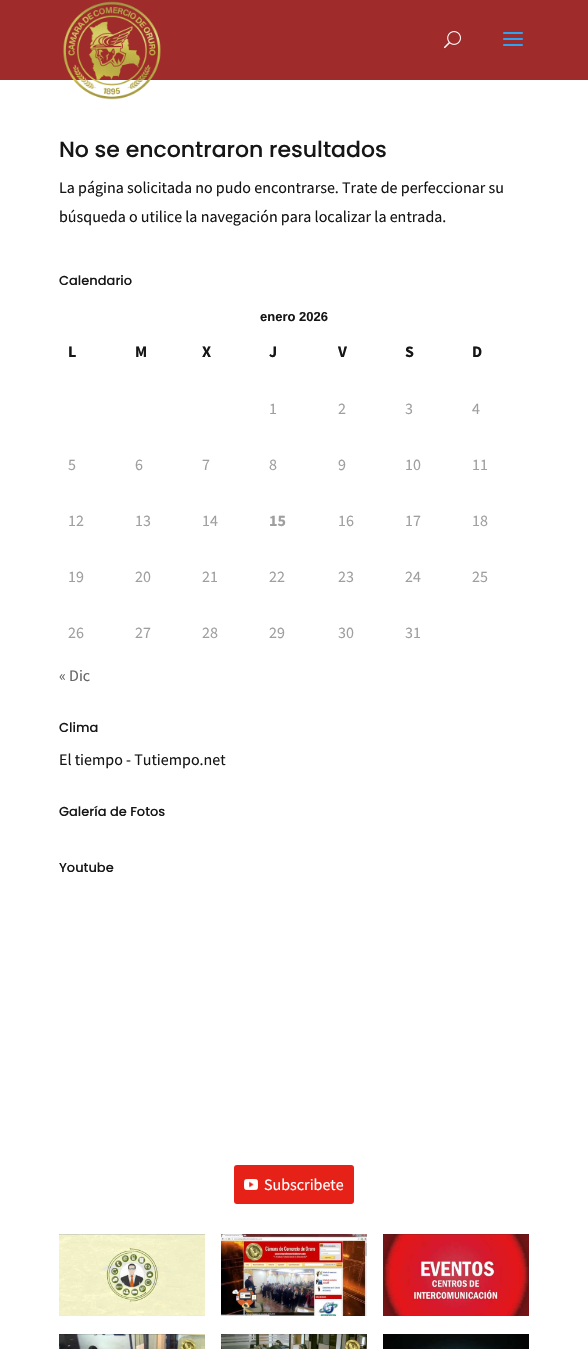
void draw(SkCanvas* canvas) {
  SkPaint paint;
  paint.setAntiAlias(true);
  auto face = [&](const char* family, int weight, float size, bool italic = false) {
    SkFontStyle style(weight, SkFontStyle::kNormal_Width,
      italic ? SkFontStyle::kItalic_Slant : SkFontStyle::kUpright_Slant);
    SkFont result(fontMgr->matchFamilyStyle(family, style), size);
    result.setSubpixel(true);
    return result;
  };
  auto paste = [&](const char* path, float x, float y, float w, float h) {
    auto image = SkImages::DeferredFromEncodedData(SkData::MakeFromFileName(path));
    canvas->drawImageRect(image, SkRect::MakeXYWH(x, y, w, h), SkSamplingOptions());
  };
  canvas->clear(0xffffffff);
  paint.setColor(0xffa02b2b);
  canvas->drawRect(SkRect::MakeXYWH(0, 0, 588, 80), paint);
  paste("img/1.png", 63, 1, 98, 99);
  paste("img/2.png", 444, 31, 17, 18);
  paste("img/3.png", 503, 32, 20, 14);
  paint.setColor(0xffe62117);
  canvas->drawRoundRect(SkRect::MakeXYWH(234, 1165, 120, 39), 3, 3, paint);
  paste("img/4.png", 244, 1179, 14, 11);
  paste("img/5.png", 59, 1234, 146, 82);
  paste("img/6.png", 221, 1234, 146, 82);
  paste("img/7.png", 383, 1234, 146, 82);
  paste("img/8.png", 59, 1334, 146, 15);
  paste("img/9.png", 221, 1334, 146, 15);
  paste("img/10.png", 383, 1334, 146, 15);
  auto f0 = face("Poppins", 500, 22);
  paint.setColor(0xff161616);
  canvas->drawString("No se encontraron resultados", 59, 157, f0, paint);
  auto f1 = face("Source Sans Pro", 400, 16);
  canvas->drawString("La página solicitada no pudo encontrarse. Trate de perfeccionar su", 59, 193, f1, paint);
  canvas->drawString("búsqueda o utilice la navegación para localizar la entrada.", 59, 222, f1, paint);
  auto f2 = face("Poppins", 500, 13);
  canvas->drawString("Calendario", 59, 285, f2, paint);
  auto f3 = face("Liberation Sans", 700, 13);
  canvas->drawString("enero 2026", 260, 321, f3, paint);
  auto f4 = face("Source Sans Pro", 700, 16);
  {
    const struct { const char* s; float x, y; } items[] = {
      {"L", 68, 357},
      {"M", 135, 357},
      {"X", 202, 357},
      {"J", 269, 357},
      {"V", 338, 357},
      {"S", 405, 357},
      {"D", 472, 357},
    };
    for (auto [s, x, y] : items) {
      canvas->drawString(s, x, y, f4, paint);
    }
  }
  paint.setColor(0xff9f9f9f);
  {
    const struct { const char* s; float x, y; } items[] = {
      {"1", 269, 414},
      {"2", 338, 414},
      {"3", 405, 414},
      {"4", 472, 414},
      {"5", 68, 470},
      {"6", 135, 470},
      {"7", 202, 470},
      {"8", 269, 470},
      {"9", 338, 470},
      {"10", 405, 470},
      {"11", 472, 470},
      {"12", 68, 526},
      {"13", 135, 526},
      {"14", 202, 526},
    };
    for (auto [s, x, y] : items) {
      canvas->drawString(s, x, y, f1, paint);
    }
  }
  canvas->drawString("15", 269, 526, f4, paint);
  {
    const struct { const char* s; float x, y; } items[] = {
      {"16", 338, 526},
      {"17", 405, 526},
      {"18", 472, 526},
      {"19", 68, 582},
      {"20", 135, 582},
      {"21", 202, 582},
      {"22", 269, 582},
      {"23", 338, 582},
      {"24", 405, 582},
      {"25", 472, 582},
      {"26", 68, 638},
      {"27", 135, 638},
      {"28", 202, 638},
      {"29", 269, 638},
      {"30", 338, 638},
      {"31", 405, 638},
    };
    for (auto [s, x, y] : items) {
      canvas->drawString(s, x, y, f1, paint);
    }
  }
  paint.setColor(0xff666666);
  canvas->drawString("« Dic", 59, 681, f1, paint);
  paint.setColor(0xff161616);
  canvas->drawString("Clima", 59, 732, f2, paint);
  canvas->drawString("El tiempo - Tutiempo.net", 59, 765, f1, paint);
  canvas->drawString("Galería de Fotos", 59, 816, f2, paint);
  canvas->drawString("Youtube", 59, 872, f2, paint);
  paint.setColor(0xffffffff);
  canvas->drawString("Subscribete", 264, 1190, f1, paint);
}
